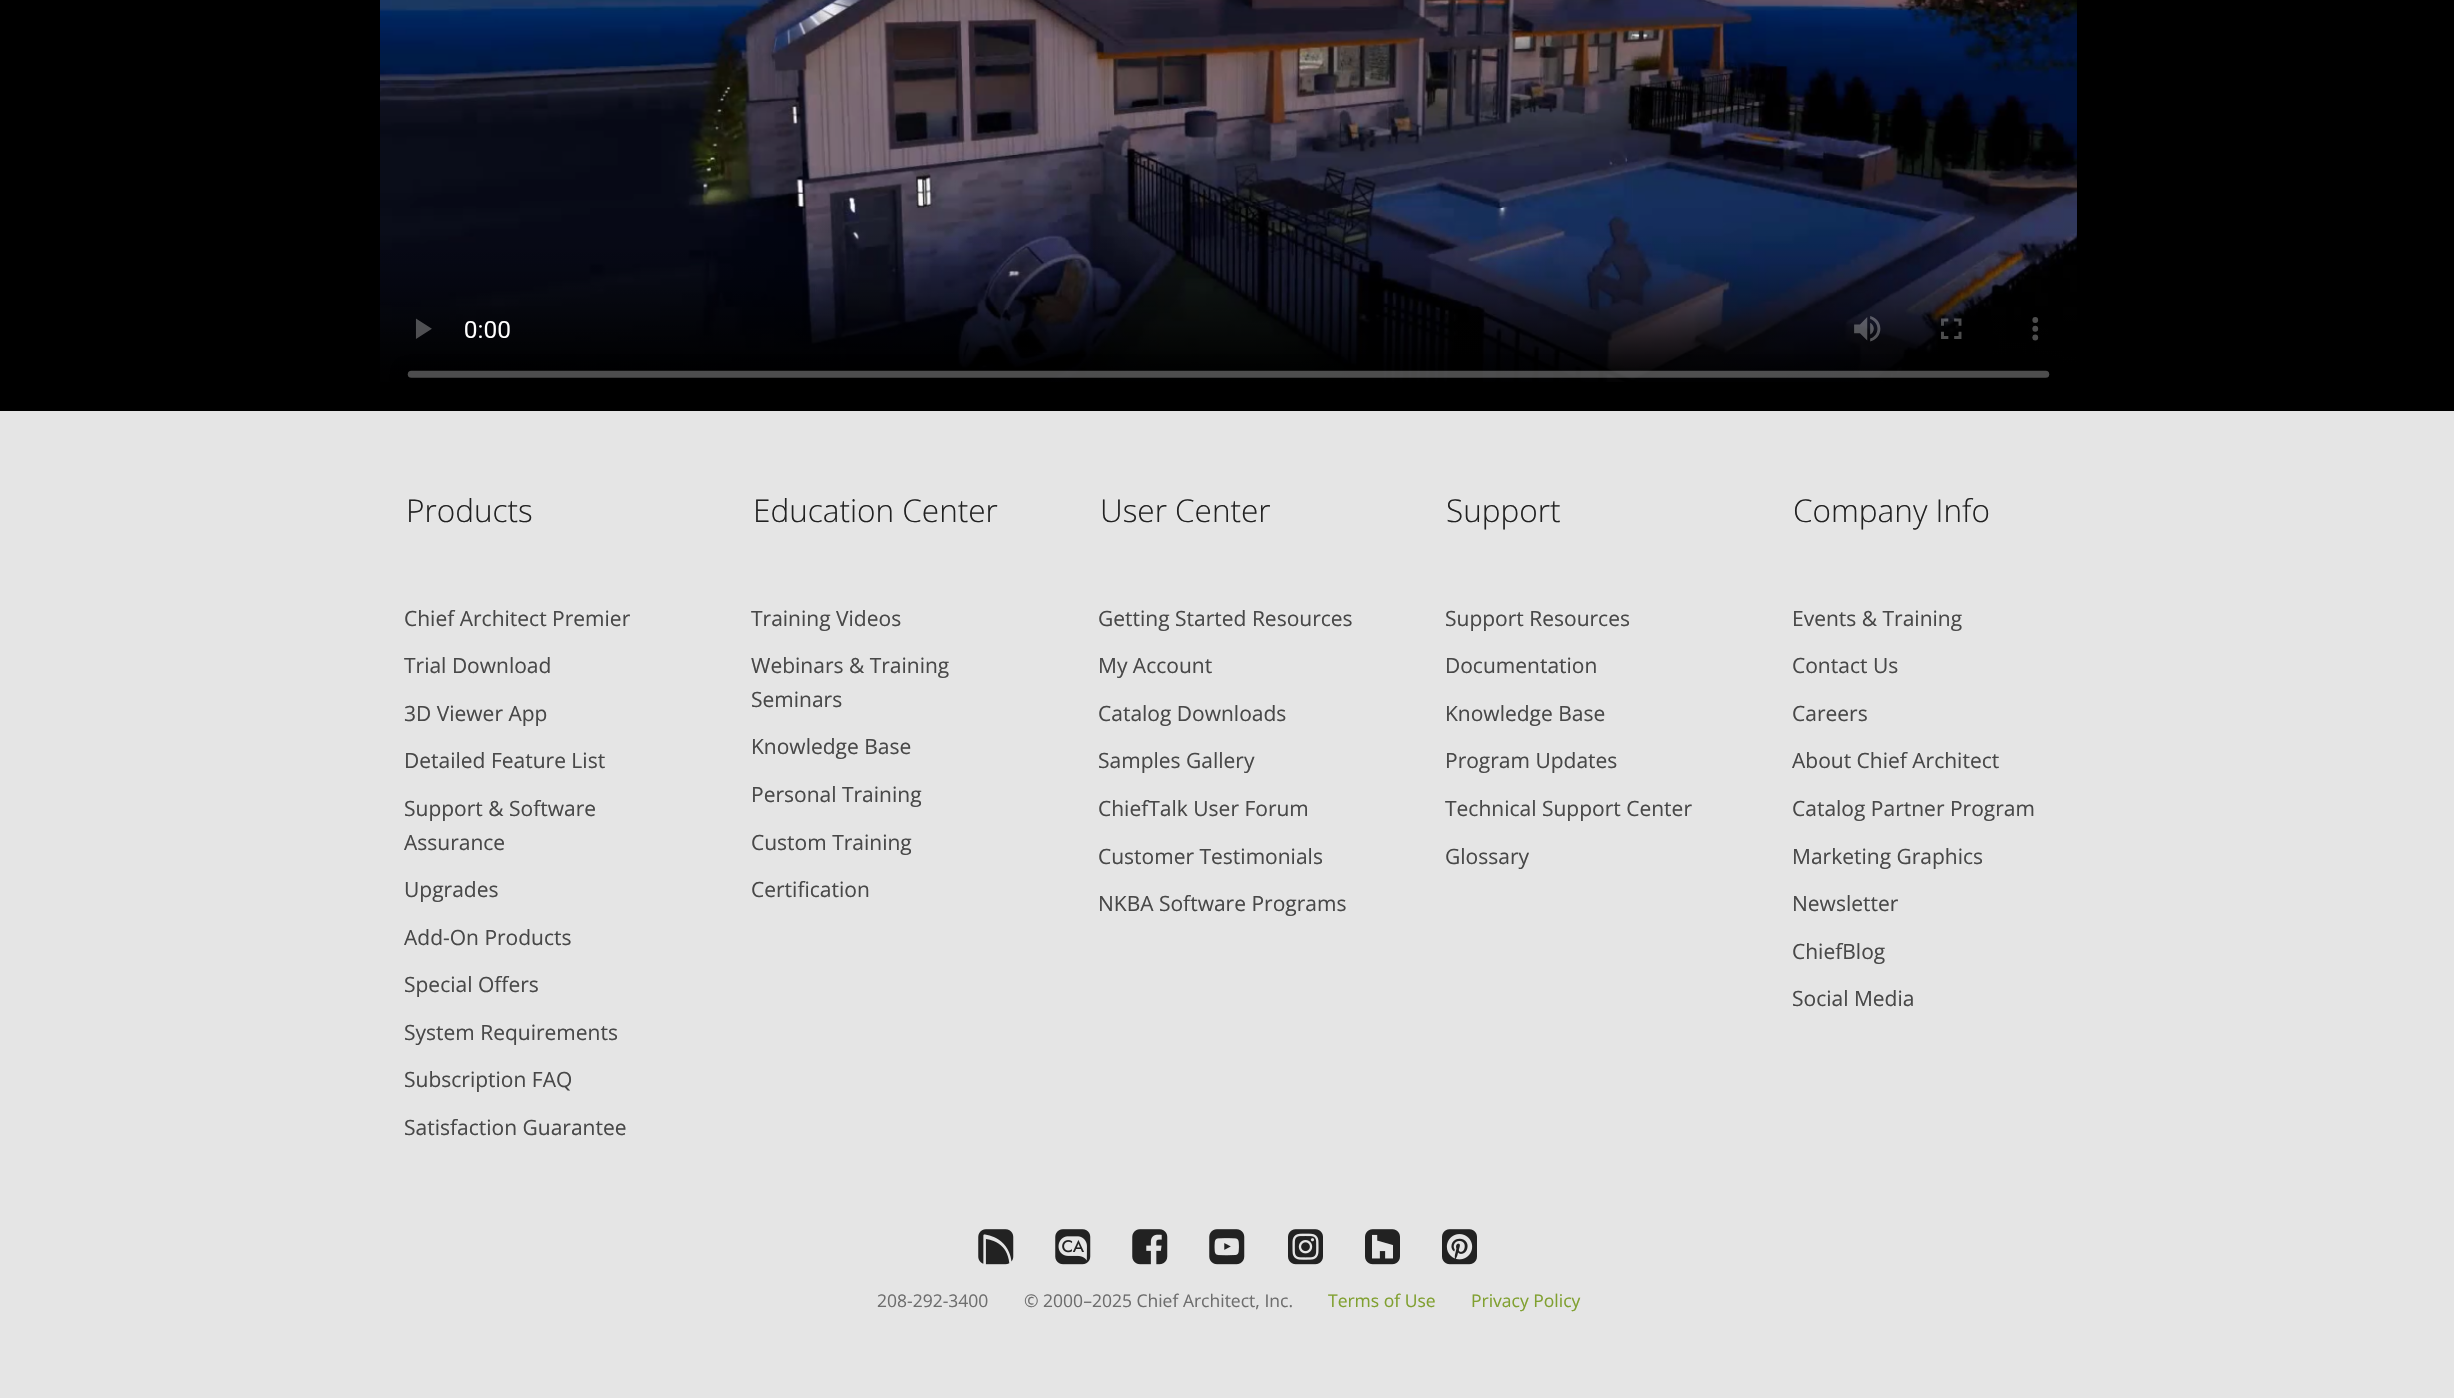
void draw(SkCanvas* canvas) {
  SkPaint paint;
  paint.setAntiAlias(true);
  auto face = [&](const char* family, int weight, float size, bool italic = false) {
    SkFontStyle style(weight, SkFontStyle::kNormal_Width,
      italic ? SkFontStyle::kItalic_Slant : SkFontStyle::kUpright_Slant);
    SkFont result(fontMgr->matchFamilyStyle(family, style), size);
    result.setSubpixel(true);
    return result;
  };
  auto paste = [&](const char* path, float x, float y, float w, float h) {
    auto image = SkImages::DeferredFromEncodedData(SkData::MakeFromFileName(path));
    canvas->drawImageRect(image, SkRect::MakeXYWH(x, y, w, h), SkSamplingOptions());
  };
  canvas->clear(0xff000000);
  paste("img/1.png", 380, 0, 1697, 382);
  paint.setColor(0xffe5e5e5);
  canvas->drawRect(SkRect::MakeXYWH(0, 411, 2454, 987), paint);
  paste("img/2.png", 978, 1229, 36, 36);
  paste("img/3.png", 1055, 1229, 36, 36);
  paste("img/4.png", 1132, 1229, 36, 36);
  paste("img/5.png", 1209, 1229, 36, 36);
  paste("img/6.png", 1288, 1229, 35, 36);
  paste("img/7.png", 1365, 1229, 35, 36);
  paste("img/8.png", 1442, 1229, 35, 36);
  auto f0 = face("Open Sans", 300, 31.5f);
  paint.setColor(0xff222222);
  canvas->drawString("Products", 406, 522, f0, paint);
  auto f1 = face("Open Sans", 400, 21);
  paint.setColor(0xff484848);
  {
    const struct { const char* s; float x, y; } items[] = {
      {"Chief Architect Premier", 404, 626},
      {"Trial Download", 404, 673},
      {"3D Viewer App", 404, 721},
      {"Detailed Feature List", 404, 768},
      {"Support & Software", 404, 816},
      {"Assurance", 404, 850},
      {"Upgrades", 404, 897},
      {"Add-On Products", 404, 945},
      {"Special Offers", 404, 992},
      {"System Requirements", 404, 1040},
      {"Subscription FAQ", 404, 1087},
      {"Satisfaction Guarantee", 404, 1135},
    };
    for (auto [s, x, y] : items) {
      canvas->drawString(s, x, y, f1, paint);
    }
  }
  paint.setColor(0xff222222);
  canvas->drawString("Education Center", 753, 522, f0, paint);
  paint.setColor(0xff484848);
  {
    const struct { const char* s; float x, y; } items[] = {
      {"Training Videos", 751, 626},
      {"Webinars & Training", 751, 673},
      {"Seminars", 751, 707},
      {"Knowledge Base", 751, 754},
      {"Personal Training", 751, 802},
      {"Custom Training", 751, 850},
      {"Certification", 751, 897},
    };
    for (auto [s, x, y] : items) {
      canvas->drawString(s, x, y, f1, paint);
    }
  }
  paint.setColor(0xff222222);
  canvas->drawString("User Center", 1100, 522, f0, paint);
  paint.setColor(0xff484848);
  {
    const struct { const char* s; float x, y; } items[] = {
      {"Getting Started Resources", 1098, 626},
      {"My Account", 1098, 673},
      {"Catalog Downloads", 1098, 721},
      {"Samples Gallery", 1098, 768},
      {"ChiefTalk User Forum", 1098, 816},
      {"Customer Testimonials", 1098, 864},
      {"NKBA Software Programs", 1098, 911},
    };
    for (auto [s, x, y] : items) {
      canvas->drawString(s, x, y, f1, paint);
    }
  }
  paint.setColor(0xff222222);
  canvas->drawString("Support", 1446, 522, f0, paint);
  paint.setColor(0xff484848);
  {
    const struct { const char* s; float x, y; } items[] = {
      {"Support Resources", 1445, 626},
      {"Documentation", 1445, 673},
      {"Knowledge Base", 1445, 721},
      {"Program Updates", 1445, 768},
      {"Technical Support Center", 1445, 816},
      {"Glossary", 1445, 864},
    };
    for (auto [s, x, y] : items) {
      canvas->drawString(s, x, y, f1, paint);
    }
  }
  paint.setColor(0xff222222);
  canvas->drawString("Company Info", 1793, 522, f0, paint);
  paint.setColor(0xff484848);
  {
    const struct { const char* s; float x, y; } items[] = {
      {"Events & Training", 1792, 626},
      {"Contact Us", 1792, 673},
      {"Careers", 1792, 721},
      {"About Chief Architect", 1792, 768},
      {"Catalog Partner Program", 1792, 816},
      {"Marketing Graphics", 1792, 864},
      {"Newsletter", 1792, 911},
      {"ChiefBlog", 1792, 959},
      {"Social Media", 1792, 1006},
    };
    for (auto [s, x, y] : items) {
      canvas->drawString(s, x, y, f1, paint);
    }
  }
  auto f2 = face("Open Sans", 400, 17.5f);
  paint.setColor(0xff6e6e6e);
  canvas->drawString("208-292-3400", 877, 1307, f2, paint);
  canvas->drawString("© 2000–2025 Chief Architect, Inc.", 1024, 1307, f2, paint);
  paint.setColor(0xff80a030);
  canvas->drawString("Terms of Use", 1328, 1307, f2, paint);
  canvas->drawString("Privacy Policy", 1471, 1307, f2, paint);
}
